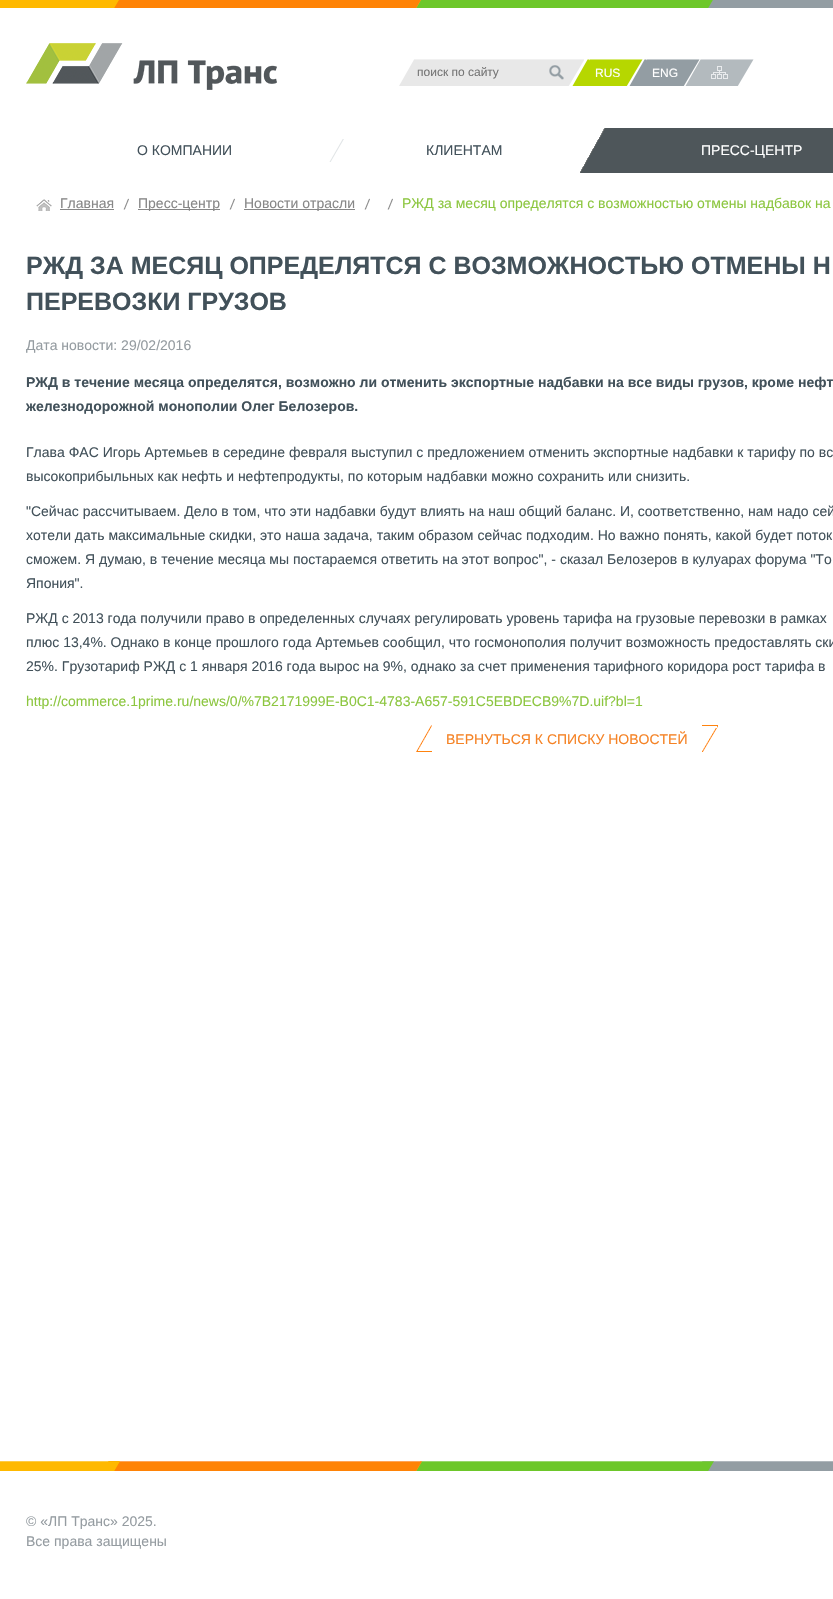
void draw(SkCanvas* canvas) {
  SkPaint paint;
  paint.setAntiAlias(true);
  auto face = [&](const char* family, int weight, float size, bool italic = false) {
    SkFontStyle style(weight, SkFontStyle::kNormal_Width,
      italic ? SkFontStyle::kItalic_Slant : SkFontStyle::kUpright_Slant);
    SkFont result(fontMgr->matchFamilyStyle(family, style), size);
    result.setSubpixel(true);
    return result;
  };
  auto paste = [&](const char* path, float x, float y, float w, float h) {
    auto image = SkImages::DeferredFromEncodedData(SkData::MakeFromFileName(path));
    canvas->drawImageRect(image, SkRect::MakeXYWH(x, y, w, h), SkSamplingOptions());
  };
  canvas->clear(0xffffffff);
  paste("img/1.png", 0, 0, 833, 8);
  paste("img/2.png", 26, 43, 251, 47);
  paste("img/3.png", 399, 59, 185, 27);
  paste("img/4.png", 549, 65, 15, 15);
  paste("img/5.png", 589, 59, 54, 27);
  paste("img/6.png", 572, 59, 17, 27);
  paste("img/7.png", 646, 59, 54, 27);
  paste("img/8.png", 629, 59, 17, 27);
  paste("img/9.png", 685, 59, 69, 27);
  paste("img/10.png", 329, 139, 15, 23);
  paste("img/10.png", 585, 139, 15, 23);
  paste("img/11.png", 580, 128, 253, 45);
  paste("img/12.png", 36, 199, 16, 12);
  paint.setColor(0xff878787);
  canvas->drawRect(SkRect::MakeXYWH(60, 209, 54, 1), paint);
  paste("img/13.png", 123, 198, 6, 12);
  canvas->drawRect(SkRect::MakeXYWH(138, 209, 82, 1), paint);
  paste("img/13.png", 229, 198, 6, 12);
  canvas->drawRect(SkRect::MakeXYWH(244, 209, 111, 1), paint);
  paste("img/13.png", 364, 198, 6, 12);
  paste("img/13.png", 387, 198, 6, 12);
  paste("img/14.png", 416, 725, 16, 27);
  paste("img/15.png", 702, 725, 16, 27);
  paste("img/16.png", 0, 1461, 833, 10);
  auto f0 = face("Liberation Sans", 400, 12);
  paint.setColor(0xff757575);
  canvas->drawString("поиск по сайту", 417, 76, f0, paint);
  paint.setColor(0xffffffff);
  canvas->drawString("RUS", 595, 77, f0, paint);
  canvas->drawString("ENG", 652, 77, f0, paint);
  auto f1 = face("Liberation Sans", 400, 14);
  paint.setColor(0xff42515a);
  canvas->drawString("О КОМПАНИИ", 137, 155, f1, paint);
  canvas->drawString("КЛИЕНТАМ", 426, 155, f1, paint);
  paint.setColor(0xffffffff);
  canvas->drawString("ПРЕСС-ЦЕНТР", 701, 155, f1, paint);
  paint.setColor(0xff878787);
  {
    const struct { const char* s; float x, y; } items[] = {
      {"Главная", 60, 208},
      {"Пресс-центр", 138, 208},
      {"Новости отрасли", 244, 208},
    };
    for (auto [s, x, y] : items) {
      canvas->drawString(s, x, y, f1, paint);
    }
  }
  paint.setColor(0xff8cc63f);
  canvas->drawString("РЖД за месяц определятся с возможностью отмены надбавок на", 402, 208, f1, paint);
  auto f2 = face("Liberation Sans", 700, 25);
  paint.setColor(0xff42515a);
  canvas->drawString("РЖД ЗА МЕСЯЦ ОПРЕДЕЛЯТСЯ С ВОЗМОЖНОСТЬЮ ОТМЕНЫ Н", 26, 274, f2, paint);
  canvas->drawString("ПЕРЕВОЗКИ ГРУЗОВ", 26, 310, f2, paint);
  paint.setColor(0xff959ca1);
  canvas->drawString("Дата новости: 29/02/2016", 26, 350, f1, paint);
  auto f3 = face("Liberation Sans", 700, 14);
  paint.setColor(0xff42515a);
  canvas->drawString("РЖД в течение месяца определятся, возможно ли отменить экспортные надбавки на все виды грузов, кроме нефт", 26, 387, f3, paint);
  canvas->drawString("железнодорожной монополии Олег Белозеров.", 26, 411, f3, paint);
  {
    const struct { const char* s; float x, y; } items[] = {
      {"Глава ФАС Игорь Артемьев в середине февраля выступил с предложением отменить экспортные надбавки к тарифу по вс", 26, 457},
      {"высокоприбыльных как нефть и нефтепродукты, по которым надбавки можно сохранить или снизить.", 26, 481},
      {"\"Сейчас рассчитываем. Дело в том, что эти надбавки будут влиять на наш общий баланс. И, соответственно, нам надо сей", 26, 516},
      {"хотели дать максимальные скидки, это наша задача, таким образом сейчас подходим. Но важно понять, какой будет поток", 26, 540},
      {"сможем. Я думаю, в течение месяца мы постараемся ответить на этот вопрос\", - сказал Белозеров в кулуарах форума \"То", 26, 564},
      {"Япония\".", 26, 588},
      {"РЖД с 2013 года получили право в определенных случаях регулировать уровень тарифа на грузовые перевозки в рамках", 26, 623},
      {"плюс 13,4%. Однако в конце прошлого года Артемьев сообщил, что госмонополия получит возможность предоставлять ски", 26, 647},
      {"25%. Грузотариф РЖД с 1 января 2016 года вырос на 9%, однако за счет применения тарифного коридора рост тарифа в", 26, 671},
    };
    for (auto [s, x, y] : items) {
      canvas->drawString(s, x, y, f1, paint);
    }
  }
  paint.setColor(0xff8cc63f);
  canvas->drawString("http://commerce.1prime.ru/news/0/%7B2171999E-B0C1-4783-A657-591C5EBDECB9%7D.uif?bl=1", 26, 706, f1, paint);
  paint.setColor(0xfff58224);
  canvas->drawString("ВЕРНУТЬСЯ К СПИСКУ НОВОСТЕЙ", 446, 744, f1, paint);
  paint.setColor(0xff959ca1);
  canvas->drawString("© «ЛП Транс» 2025.", 26, 1526, f1, paint);
  canvas->drawString("Все права защищены", 26, 1546, f1, paint);
}
